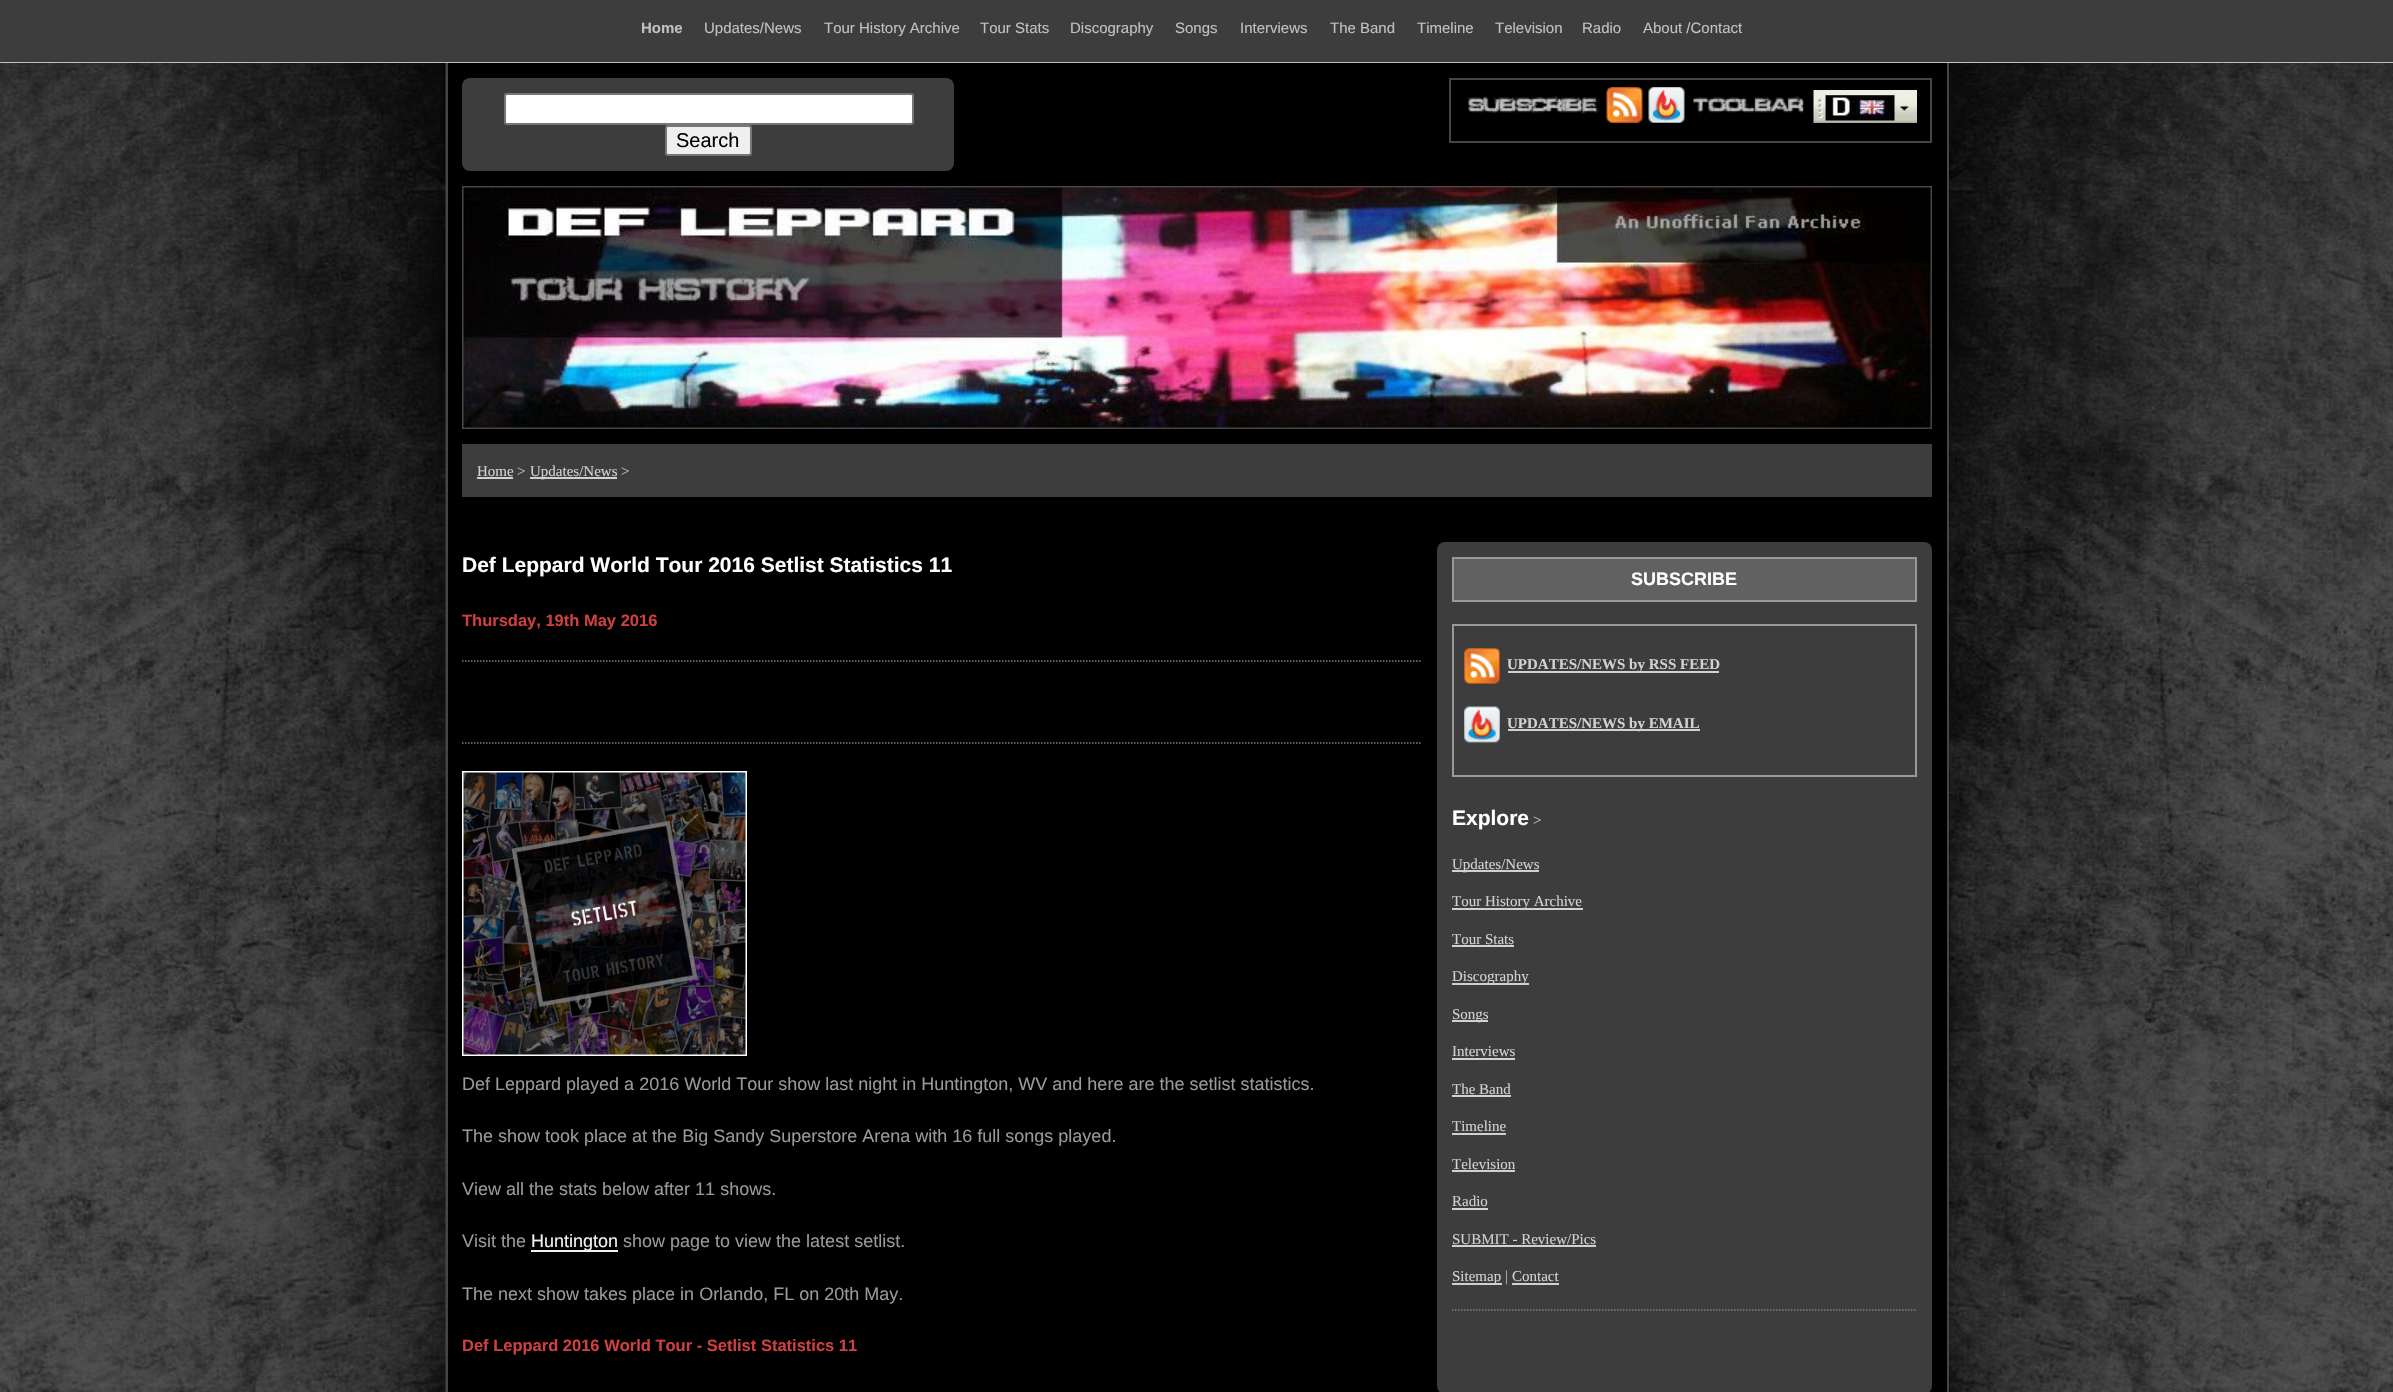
void draw(SkCanvas* canvas) {
  SkPaint paint;
  paint.setAntiAlias(true);
  auto face = [&](const char* family, int weight, float size, bool italic = false) {
    SkFontStyle style(weight, SkFontStyle::kNormal_Width,
      italic ? SkFontStyle::kItalic_Slant : SkFontStyle::kUpright_Slant);
    SkFont result(fontMgr->matchFamilyStyle(family, style), size);
    result.setSubpixel(true);
    return result;
  };
  auto paste = [&](const char* path, float x, float y, float w, float h) {
    auto image = SkImages::DeferredFromEncodedData(SkData::MakeFromFileName(path));
    canvas->drawImageRect(image, SkRect::MakeXYWH(x, y, w, h), SkSamplingOptions());
  };
  auto shape = [&](const char* data, bool evenOdd = false) {
    SkPath result = *SkParsePath::FromSVGString(data);
    if (evenOdd) result.setFillType(SkPathFillType::kEvenOdd);
    return result;
  };
  canvas->clear(0xff3d3d3d);
  paint.setColor(0xffc0c0c0);
  canvas->drawRect(SkRect::MakeXYWH(0, 62, 2393, 1), paint);
  paste("img/1.png", 0, 63, 2393, 1329);
  {
    const struct { float x, y, w, h; SkColor color; } items[] = {
      {1946, 63, 1, 464, 0xff000000},
      {1947, 63, 2, 1329, 0xff454545},
      {446, 63, 2, 1329, 0xff454545},
    };
    for (auto [x, y, w, h, color] : items) {
      paint.setColor(color);
      canvas->drawRect(SkRect::MakeXYWH(x, y, w, h), paint);
    }
  }
  paint.setColor(0xff3d3d3d);
  canvas->drawRoundRect(SkRect::MakeXYWH(462, 78, 492, 93), 8, 8, paint);
  paint.setColor(0xffffffff);
  canvas->drawRoundRect(SkRect::MakeXYWH(505, 94, 408, 30), 2, 2, paint);
  paint.setStroke(true);
  paint.setStrokeWidth(2);
  paint.setColor(0xff767676);
  canvas->drawRoundRect(SkRect::MakeXYWH(505, 94, 408, 30), 2, 2, paint);
  paint.setStroke(false);
  paint.setColor(0xffefefef);
  canvas->drawRoundRect(SkRect::MakeXYWH(666, 126, 85, 29), 2, 2, paint);
  paint.setStroke(true);
  paint.setColor(0xff767676);
  canvas->drawRoundRect(SkRect::MakeXYWH(666, 126, 85, 29), 2, 2, paint);
  paint.setColor(0xff454545);
  canvas->drawRect(SkRect::MakeXYWH(1450, 79, 481, 63), paint);
  paste("img/2.png", 1467, 96, 132, 18);
  paste("img/3.png", 1606, 87, 37, 36);
  paste("img/4.png", 1648, 87, 37, 36);
  paste("img/5.png", 1693, 96, 111, 17);
  paste("img/6.png", 1813, 90, 104, 33);
  paste("img/7.png", 462, 186, 1470, 243);
  paint.setStroke(false);
  {
    const struct { float x, y, w, h; SkColor color; } items[] = {
      {462, 444, 1470, 53, 0xff3d3d3d},
      {477, 477, 36, 2, 0xffd1d1d1},
      {530, 477, 87, 2, 0xffd1d1d1},
      {448, 527, 1499, 865, 0xff000000},
    };
    for (auto [x, y, w, h, color] : items) {
      paint.setColor(color);
      canvas->drawRect(SkRect::MakeXYWH(x, y, w, h), paint);
    }
  }
  paint.setStroke(true);
  paint.setStrokeWidth(1.5f);
  paint.setColor(0xff808080);
  paint.setPathEffect(SkDashPathEffect::Make({{1.5f, 1.5f}}, 0));
  canvas->drawPath(shape("M462 661H1422"), paint);
  paint.setPathEffect(nullptr);
  paint.setPathEffect(SkDashPathEffect::Make({{1.5f, 1.5f}}, 0));
  canvas->drawPath(shape("M462 743H1422"), paint);
  paint.setPathEffect(nullptr);
  paint.setStrokeWidth(2);
  paint.setColor(0xffffffff);
  canvas->drawRect(SkRect::MakeXYWH(463, 772, 283, 283), paint);
  paste("img/8.png", 463, 772, 283, 283);
  paint.setStroke(false);
  paint.setColor(0xfff2f2f2);
  canvas->drawRect(SkRect::MakeXYWH(531, 1250, 87, 2), paint);
  paint.setColor(0xff3d3d3d);
  canvas->drawRoundRect(SkRect::MakeXYWH(1437, 542, 495, 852), 8, 8, paint);
  paint.setColor(0xff616161);
  canvas->drawRect(SkRect::MakeXYWH(1453, 558, 463, 43), paint);
  paint.setStroke(true);
  paint.setColor(0xff999999);
  canvas->drawRect(SkRect::MakeXYWH(1453, 558, 463, 43), paint);
  canvas->drawRect(SkRect::MakeXYWH(1453, 625, 463, 151), paint);
  paste("img/9.png", 1464, 648, 36, 36);
  paint.setStroke(false);
  paint.setColor(0xffd1d1d1);
  canvas->drawRect(SkRect::MakeXYWH(1508, 671, 211, 2), paint);
  paste("img/10.png", 1464, 706, 36, 37);
  {
    const struct { float x, y, w, h; SkColor color; } items[] = {
      {1508, 729, 192, 2, 0xffd1d1d1},
      {1452, 870, 87, 2, 0xffd1d1d1},
      {1452, 908, 131, 2, 0xffd1d1d1},
      {1452, 945, 62, 2, 0xffd1d1d1},
      {1452, 983, 77, 2, 0xffd1d1d1},
      {1452, 1020, 36, 2, 0xffd1d1d1},
      {1452, 1058, 63, 2, 0xffd1d1d1},
      {1452, 1095, 59, 2, 0xffd1d1d1},
      {1452, 1133, 54, 2, 0xffd1d1d1},
      {1452, 1170, 63, 2, 0xffd1d1d1},
      {1452, 1208, 36, 2, 0xffd1d1d1},
      {1452, 1245, 144, 2, 0xffd1d1d1},
      {1452, 1283, 50, 2, 0xffd1d1d1},
      {1512, 1283, 47, 2, 0xffd1d1d1},
    };
    for (auto [x, y, w, h, color] : items) {
      paint.setColor(color);
      canvas->drawRect(SkRect::MakeXYWH(x, y, w, h), paint);
    }
  }
  paint.setStroke(true);
  paint.setStrokeWidth(1.5f);
  paint.setColor(0xff808080);
  paint.setPathEffect(SkDashPathEffect::Make({{1.5f, 1.5f}}, 0));
  canvas->drawPath(shape("M1452 1310H1917"), paint);
  paint.setPathEffect(nullptr);
  auto f0 = face("Liberation Sans", 700, 15);
  paint.setStroke(false);
  paint.setColor(0xffc0c0c0);
  canvas->drawString("Home", 641, 33, f0, paint);
  auto f1 = face("Liberation Sans", 400, 15);
  {
    const struct { const char* s; float x, y; } items[] = {
      {"Updates/News", 704, 33},
      {"Tour History Archive", 824, 33},
      {"Tour Stats", 980, 33},
      {"Discography", 1070, 33},
      {"Songs", 1175, 33},
      {"Interviews", 1240, 33},
      {"The Band", 1330, 33},
      {"Timeline", 1417, 33},
      {"Television", 1495, 33},
      {"Radio", 1582, 33},
      {"About /Contact", 1643, 33},
    };
    for (auto [s, x, y] : items) {
      canvas->drawString(s, x, y, f1, paint);
    }
  }
  auto f2 = face("Liberation Sans", 400, 20);
  paint.setColor(0xff000000);
  canvas->drawString("Search", 676, 147, f2, paint);
  auto f3 = face("Liberation Serif", 400, 15);
  paint.setColor(0xffd1d1d1);
  canvas->drawString("Home", 477, 476, f3, paint);
  paint.setColor(0xffc0c0c0);
  canvas->drawString(">", 517, 476, f3, paint);
  paint.setColor(0xffd1d1d1);
  canvas->drawString("Updates/News", 530, 476, f3, paint);
  paint.setColor(0xffc0c0c0);
  canvas->drawString(">", 621, 476, f3, paint);
  auto f4 = face("Liberation Sans", 700, 21);
  paint.setColor(0xffffffff);
  canvas->drawString("Def Leppard World Tour 2016 Setlist Statistics 11", 462, 572, f4, paint);
  auto f5 = face("Liberation Sans", 700, 16.5f);
  paint.setColor(0xffcf3f3f);
  canvas->drawString("Thursday, 19th May 2016", 462, 626, f5, paint);
  auto f6 = face("Liberation Sans", 400, 18);
  paint.setColor(0xff999999);
  {
    const struct { const char* s; float x, y; } items[] = {
      {"Def Leppard played a 2016 World Tour show last night in Huntington, WV and here are the setlist statistics.", 462, 1090},
      {"The show took place at the Big Sandy Superstore Arena with 16 full songs played.", 462, 1142},
      {"View all the stats below after 11 shows.", 462, 1195},
      {"Visit the", 462, 1247},
    };
    for (auto [s, x, y] : items) {
      canvas->drawString(s, x, y, f6, paint);
    }
  }
  paint.setColor(0xfff2f2f2);
  canvas->drawString("Huntington", 531, 1247, f6, paint);
  paint.setColor(0xff999999);
  canvas->drawString("show page to view the latest setlist.", 623, 1247, f6, paint);
  canvas->drawString("The next show takes place in Orlando, FL on 20th May.", 462, 1300, f6, paint);
  paint.setColor(0xffcf3f3f);
  canvas->drawString("Def Leppard 2016 World Tour - Setlist Statistics 11", 462, 1351, f5, paint);
  auto f7 = face("Liberation Sans", 700, 18);
  paint.setColor(0xffffffff);
  canvas->drawString("SUBSCRIBE", 1631, 585, f7, paint);
  auto f8 = face("Liberation Serif", 700, 15);
  paint.setColor(0xffd1d1d1);
  canvas->drawString("UPDATES/NEWS by RSS FEED", 1507, 669, f8, paint);
  canvas->drawString("UPDATES/NEWS by EMAIL", 1507, 728, f8, paint);
  paint.setColor(0xffffffff);
  canvas->drawString("Explore", 1452, 825, f4, paint);
  paint.setColor(0xffc0c0c0);
  canvas->drawString(">", 1533, 825, f3, paint);
  paint.setColor(0xffd1d1d1);
  {
    const struct { const char* s; float x, y; } items[] = {
      {"Updates/News", 1452, 869},
      {"Tour History Archive", 1452, 906},
      {"Tour Stats", 1452, 944},
      {"Discography", 1452, 981},
      {"Songs", 1452, 1019},
      {"Interviews", 1452, 1056},
      {"The Band", 1452, 1094},
      {"Timeline", 1452, 1131},
      {"Television", 1452, 1169},
      {"Radio", 1452, 1206},
      {"SUBMIT - Review/Pics", 1452, 1244},
      {"Sitemap", 1452, 1281},
    };
    for (auto [s, x, y] : items) {
      canvas->drawString(s, x, y, f3, paint);
    }
  }
  paint.setColor(0xffc0c0c0);
  canvas->drawString("|", 1505, 1281, f3, paint);
  paint.setColor(0xffd1d1d1);
  canvas->drawString("Contact", 1512, 1281, f3, paint);
}
